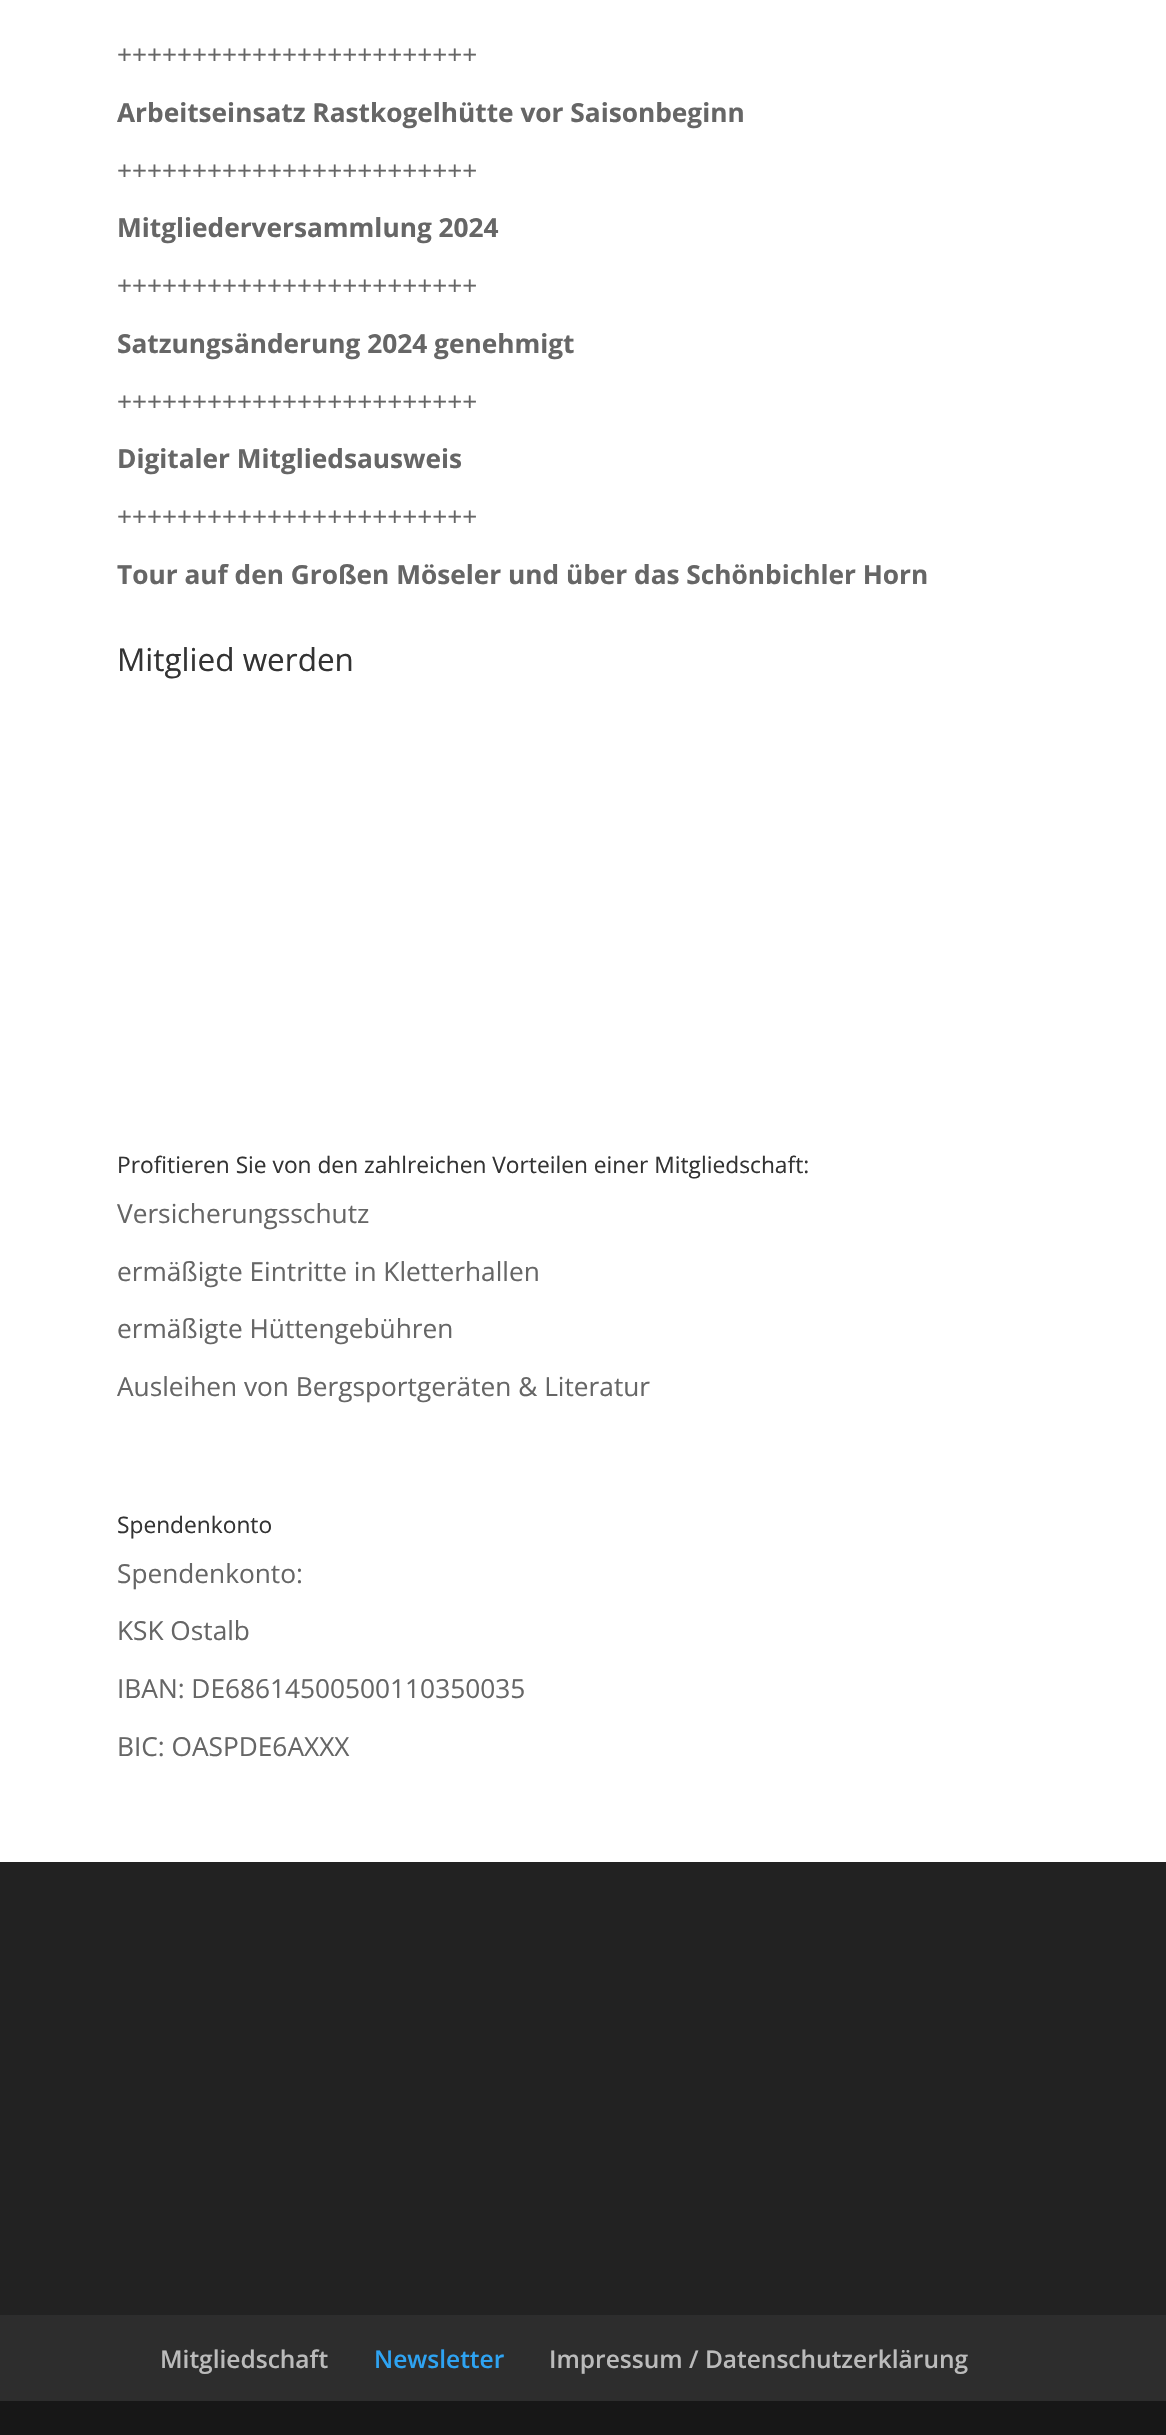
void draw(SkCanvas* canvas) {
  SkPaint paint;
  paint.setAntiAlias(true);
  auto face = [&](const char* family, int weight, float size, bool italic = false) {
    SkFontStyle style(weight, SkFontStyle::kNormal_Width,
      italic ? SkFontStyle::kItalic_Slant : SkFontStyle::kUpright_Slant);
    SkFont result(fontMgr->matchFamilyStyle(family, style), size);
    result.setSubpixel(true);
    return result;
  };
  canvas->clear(0xffffffff);
  {
    const struct { float x, y, w, h; SkColor color; } items[] = {
      {0, 1862, 1166, 453, 0xff222222},
      {0, 2315, 1166, 86, 0xff2d2d2d},
      {0, 2401, 1166, 34, 0xff171717},
    };
    for (auto [x, y, w, h, color] : items) {
      paint.setColor(color);
      canvas->drawRect(SkRect::MakeXYWH(x, y, w, h), paint);
    }
  }
  auto f0 = face("Open Sans", 400, 26.25f);
  paint.setColor(0xff666666);
  canvas->drawString("++++++++++++++++++++++++", 117, 64, f0, paint);
  auto f1 = face("Open Sans", 700, 26.25f);
  canvas->drawString("Arbeitseinsatz Rastkogelhütte vor Saisonbeginn", 117, 122, f1, paint);
  canvas->drawString("++++++++++++++++++++++++", 117, 180, f0, paint);
  canvas->drawString("Mitgliederversammlung 2024", 117, 237, f1, paint);
  canvas->drawString("++++++++++++++++++++++++", 117, 295, f0, paint);
  canvas->drawString("Satzungsänderung 2024 genehmigt", 117, 353, f1, paint);
  canvas->drawString("++++++++++++++++++++++++", 117, 411, f0, paint);
  canvas->drawString("Digitaler Mitgliedsausweis", 117, 468, f1, paint);
  canvas->drawString("++++++++++++++++++++++++", 117, 526, f0, paint);
  canvas->drawString("Tour auf den Großen Möseler und über das Schönbichler Horn", 117, 584, f1, paint);
  auto f2 = face("Open Sans", 400, 31.5f);
  paint.setColor(0xff333333);
  canvas->drawString("Mitglied werden", 117, 671, f2, paint);
  auto f3 = face("Open Sans", 400, 22.75f);
  canvas->drawString("Profitieren Sie von den zahlreichen Vorteilen einer Mitgliedschaft:", 117, 1173, f3, paint);
  paint.setColor(0xff666666);
  {
    const struct { const char* s; float x, y; } items[] = {
      {"Versicherungsschutz", 117, 1223},
      {"ermäßigte Eintritte in Kletterhallen", 117, 1281},
      {"ermäßigte Hüttengebühren", 117, 1338},
      {"Ausleihen von Bergsportgeräten & Literatur", 117, 1396},
    };
    for (auto [s, x, y] : items) {
      canvas->drawString(s, x, y, f0, paint);
    }
  }
  paint.setColor(0xff333333);
  canvas->drawString("Spendenkonto", 117, 1533, f3, paint);
  paint.setColor(0xff666666);
  {
    const struct { const char* s; float x, y; } items[] = {
      {"Spendenkonto:", 117, 1583},
      {"KSK Ostalb", 117, 1640},
      {"IBAN: DE68614500500110350035", 117, 1698},
      {"BIC: OASPDE6AXXX", 117, 1756},
    };
    for (auto [s, x, y] : items) {
      canvas->drawString(s, x, y, f0, paint);
    }
  }
  auto f4 = face("Open Sans", 600, 24.5f);
  paint.setColor(0xffbbbbbb);
  canvas->drawString("Mitgliedschaft", 160, 2368, f4, paint);
  paint.setColor(0xff2ea3f2);
  canvas->drawString("Newsletter", 374, 2368, f4, paint);
  paint.setColor(0xffbbbbbb);
  canvas->drawString("Impressum / Datenschutzerklärung", 549, 2368, f4, paint);
}
